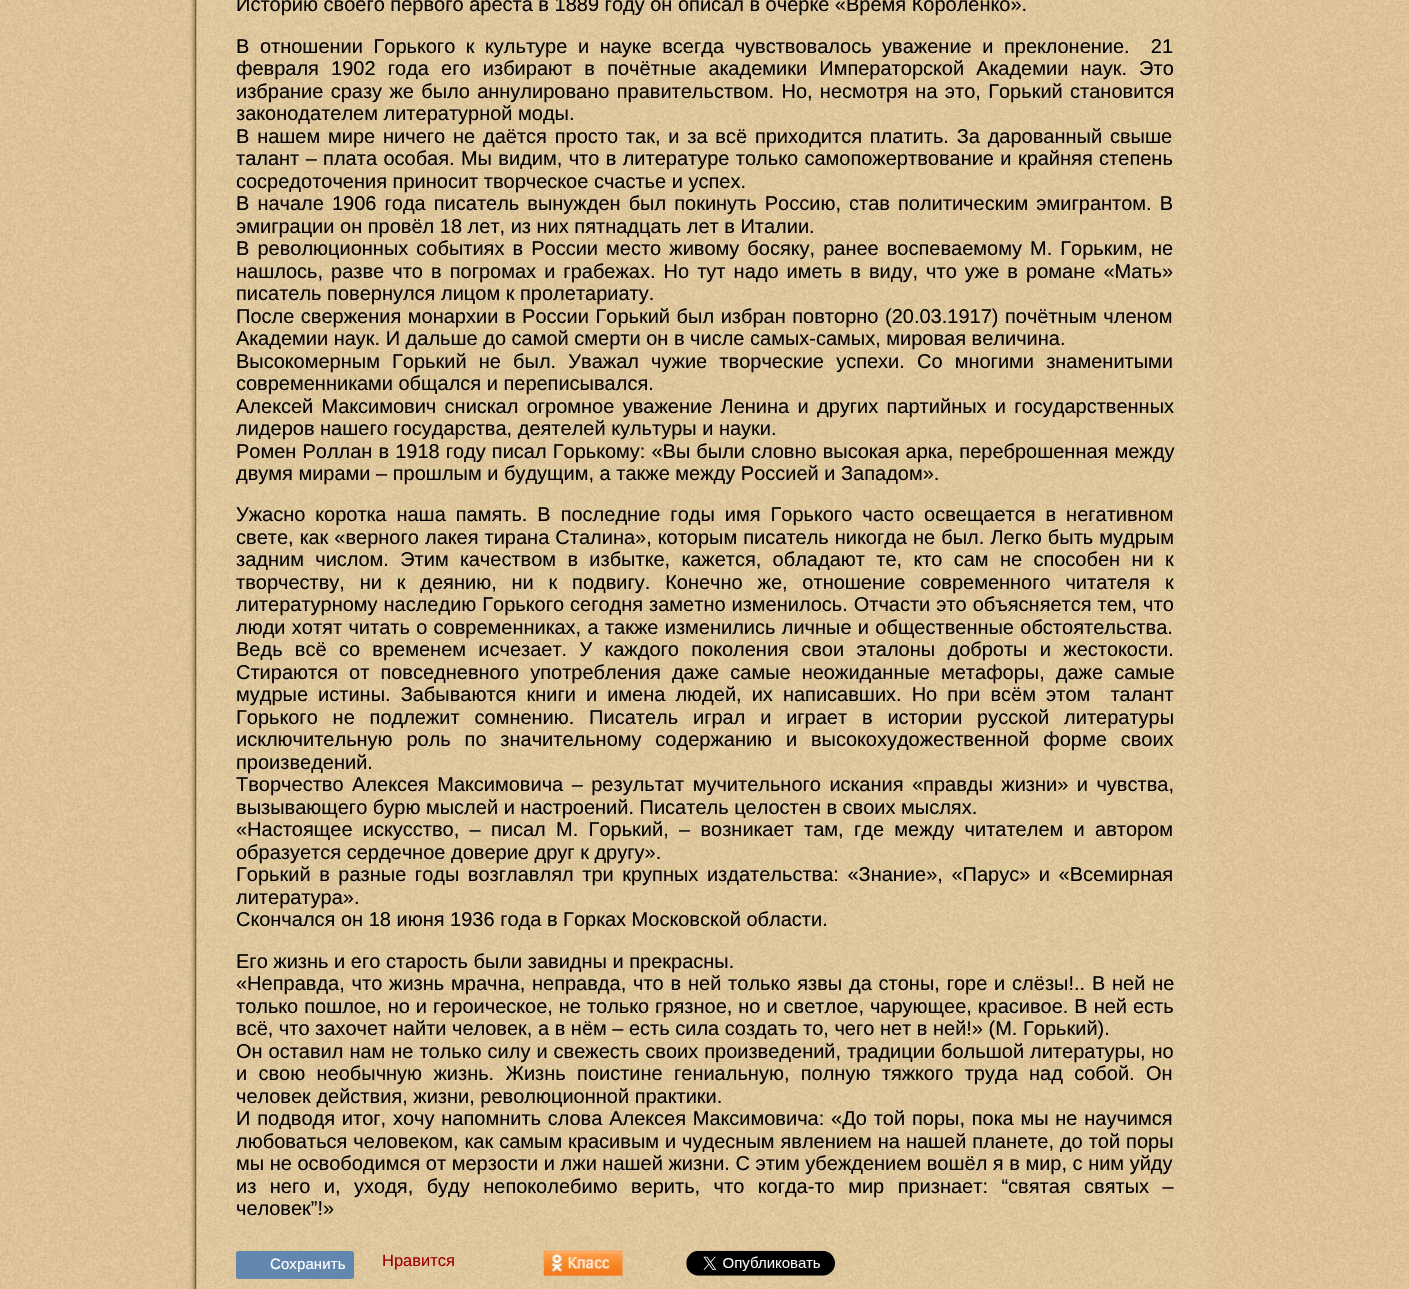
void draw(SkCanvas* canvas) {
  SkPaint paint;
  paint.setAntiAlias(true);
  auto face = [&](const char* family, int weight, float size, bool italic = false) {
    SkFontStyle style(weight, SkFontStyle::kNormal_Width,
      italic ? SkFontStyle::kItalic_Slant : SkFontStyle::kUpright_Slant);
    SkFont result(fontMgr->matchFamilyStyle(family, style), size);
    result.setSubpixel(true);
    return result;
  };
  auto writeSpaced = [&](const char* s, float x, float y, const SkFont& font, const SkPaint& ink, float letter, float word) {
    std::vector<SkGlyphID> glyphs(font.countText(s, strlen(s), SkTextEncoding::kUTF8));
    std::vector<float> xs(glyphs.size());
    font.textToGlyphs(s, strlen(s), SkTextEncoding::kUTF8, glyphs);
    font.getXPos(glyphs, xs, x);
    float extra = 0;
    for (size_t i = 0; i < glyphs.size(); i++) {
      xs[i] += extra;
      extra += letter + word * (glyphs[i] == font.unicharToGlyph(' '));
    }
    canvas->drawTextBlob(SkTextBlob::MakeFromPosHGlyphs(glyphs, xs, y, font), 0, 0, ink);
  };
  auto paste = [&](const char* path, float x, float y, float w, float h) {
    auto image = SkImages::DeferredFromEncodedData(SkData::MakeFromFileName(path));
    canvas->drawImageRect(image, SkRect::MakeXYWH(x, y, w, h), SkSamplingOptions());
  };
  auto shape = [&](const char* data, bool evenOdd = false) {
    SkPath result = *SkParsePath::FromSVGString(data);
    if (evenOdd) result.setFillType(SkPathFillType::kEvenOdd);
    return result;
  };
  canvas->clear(0xffffffff);
  paste("img/1.png", 0, 0, 1409, 1289);
  paste("img/2.png", 98, 0, 1214, 1289);
  paint.setColor(0xff6287ae);
  canvas->drawPath(shape("M238.5 1251H270V1279H238.5C237 1279 236 1278 236 1276.5V1253.5C236 1252 237 1251 238.5 1251Z"), paint);
  canvas->drawPath(shape("M270 1251H351.5C353 1251 354 1252 354 1253.5V1276.5C354 1278 353 1279 351.5 1279H270Z"), paint);
  paste("img/3.png", 543, 1250, 80, 26);
  paste("img/4.png", 686, 1250, 149, 26);
  auto f0 = face("Liberation Sans", 400, 20);
  paint.setColor(0xff000000);
  canvas->drawString("Историю своего первого ареста в 1889 году он описал в очерке «Время Короленко».", 236, 11, f0, paint);
  writeSpaced("В отношении Горького к культуре и науке всегда чувствовалось уважение и преклонение.  21", 236, 53, f0, paint, 0, 5);
  writeSpaced("февраля 1902 года его избирают в почётные академики Императорской Академии наук. Это", 236, 75, f0, paint, 0, 6.6f);
  writeSpaced("избрание сразу же было аннулировано правительством. Но, несмотря на это, Горький становится", 236, 98, f0, paint, 0, 1.75f);
  canvas->drawString("законодателем литературной моды.", 236, 120, f0, paint);
  writeSpaced("В нашем мире ничего не даётся просто так, и за всё приходится платить. За дарованный свыше", 236, 143, f0, paint, 0, 2.25f);
  writeSpaced("талант – плата особая. Мы видим, что в литературе только самопожертвование и крайняя степень", 236, 165, f0, paint, 0, 0.8f);
  canvas->drawString("сосредоточения приносит творческое счастье и успех.", 236, 188, f0, paint);
  writeSpaced("В начале 1906 года писатель вынужден был покинуть Россию, став политическим эмигрантом. В", 236, 210, f0, paint, 0, 2.5f);
  canvas->drawString("эмиграции он провёл 18 лет, из них пятнадцать лет в Италии.", 236, 233, f0, paint);
  writeSpaced("В революционных событиях в России место живому босяку, ранее воспеваемому М. Горьким, не", 236, 255, f0, paint, 0, 2.5f);
  writeSpaced("нашлось, разве что в погромах и грабежах. Но тут надо иметь в виду, что уже в романе «Мать»", 236, 278, f0, paint, 0, 2.5f);
  canvas->drawString("писатель повернулся лицом к пролетариату.", 236, 300, f0, paint);
  writeSpaced("После свержения монархии в России Горький был избран повторно (20.03.1917) почётным членом", 236, 323, f0, paint, 0, 1);
  canvas->drawString("Академии наук. И дальше до самой смерти он в числе самых-самых, мировая величина.", 236, 345, f0, paint);
  writeSpaced("Высокомерным Горький не был. Уважал чужие творческие успехи. Со многими знаменитыми", 236, 368, f0, paint, 0, 6.6f);
  canvas->drawString("современниками общался и переписывался.", 236, 390, f0, paint);
  writeSpaced("Алексей Максимович снискал огромное уважение Ленина и других партийных и государственных", 236, 413, f0, paint, 0, 2.75f);
  canvas->drawString("лидеров нашего государства, деятелей культуры и науки.", 236, 435, f0, paint);
  writeSpaced("Ромен Роллан в 1918 году писал Горькому: «Вы были словно высокая арка, переброшенная между", 236, 458, f0, paint, 0, 0.5f);
  canvas->drawString("двумя мирами – прошлым и будущим, а также между Россией и Западом».", 236, 480, f0, paint);
  writeSpaced("Ужасно коротка наша память. В последние годы имя Горького часто освещается в негативном", 236, 521, f0, paint, 0, 4.4f);
  writeSpaced("свете, как «верного лакея тирана Сталина», которым писатель никогда не был. Легко быть мудрым", 236, 544, f0, paint, 0, 0.5f);
  writeSpaced("задним числом. Этим качеством в избытке, кажется, обладают те, кто сам не способен ни к", 236, 566, f0, paint, 0, 5.75f);
  writeSpaced("творчеству, ни к деянию, ни к подвигу. Конечно же, отношение современного читателя к", 236, 589, f0, paint, 0, 9.25f);
  writeSpaced("литературному наследию Горького сегодня заметно изменилось. Отчасти это объясняется тем, что", 236, 611, f0, paint, 0, 0.4f);
  writeSpaced("люди хотят читать о современниках, а также изменились личные и общественные обстоятельства.", 236, 634, f0, paint, 0, 0.75f);
  writeSpaced("Ведь всё со временем исчезает. У каждого поколения свои эталоны доброты и жестокости.", 236, 656, f0, paint, 0, 6.75f);
  writeSpaced("Стираются от повседневного употребления даже самые неожиданные метафоры, даже самые", 236, 679, f0, paint, 0, 5.5f);
  writeSpaced("мудрые истины. Забываются книги и имена людей, их написавших. Но при всём этом  талант", 236, 701, f0, paint, 0, 4.5f);
  writeSpaced("Горького не подлежит сомнению. Писатель играл и играет в истории русской литературы", 236, 724, f0, paint, 0, 9.25f);
  writeSpaced("исключительную роль по значительному содержанию и высокохудожественной форме своих", 236, 746, f0, paint, 0, 8.25f);
  canvas->drawString("произведений.", 236, 769, f0, paint);
  writeSpaced("Творчество Алексея Максимовича – результат мучительного искания «правды жизни» и чувства,", 236, 791, f0, paint, 0, 2.9f);
  canvas->drawString("вызывающего бурю мыслей и настроений. Писатель целостен в своих мыслях.", 236, 814, f0, paint);
  writeSpaced("«Настоящее искусство, – писал М. Горький, – возникает там, где между читателем и автором", 236, 836, f0, paint, 0, 4.75f);
  canvas->drawString("образуется сердечное доверие друг к другу».", 236, 859, f0, paint);
  writeSpaced("Горький в разные годы возглавлял три крупных издательства: «Знание», «Парус» и «Всемирная", 236, 881, f0, paint, 0, 3);
  {
    const struct { const char* s; float x, y; } items[] = {
      {"литература».", 236, 904},
      {"Скончался он 18 июня 1936 года в Горках Московской области.", 236, 926},
      {"Его жизнь и его старость были завидны и прекрасны.", 236, 968},
    };
    for (auto [s, x, y] : items) {
      canvas->drawString(s, x, y, f0, paint);
    }
  }
  writeSpaced("«Неправда, что жизнь мрачна, неправда, что в ней только язвы да стоны, горе и слёзы!.. В ней не", 236, 990, f0, paint, 0, 1.25f);
  writeSpaced("только пошлое, но и героическое, не только грязное, но и светлое, чарующее, красивое. В ней есть", 236, 1013, f0, paint, 0, 0.4f);
  canvas->drawString("всё, что захочет найти человек, а в нём – есть сила создать то, чего нет в ней!» (М. Горький).", 236, 1035, f0, paint);
  writeSpaced("Он оставил нам не только силу и свежесть своих произведений, традиции большой литературы, но", 236, 1058, f0, paint, 0, 0.4f);
  writeSpaced("и свою необычную жизнь. Жизнь поистине гениальную, полную тяжкого труда над собой. Он", 236, 1080, f0, paint, 0, 5.75f);
  canvas->drawString("человек действия, жизни, революционной практики.", 236, 1103, f0, paint);
  writeSpaced("И подводя итог, хочу напомнить слова Алексея Максимовича: «До той поры, пока мы не научимся", 236, 1125, f0, paint, 0, 1.25f);
  writeSpaced("любоваться человеком, как самым красивым и чудесным явлением на нашей планете, до той поры", 236, 1148, f0, paint, 0, 0.4f);
  canvas->drawString("мы не освободимся от мерзости и лжи нашей жизни. С этим убеждением вошёл я в мир, с ним уйду", 236, 1170, f0, paint);
  writeSpaced("из него и, уходя, буду непоколебимо верить, что когда-то мир признает: “святая святых –", 236, 1193, f0, paint, 0, 7.9f);
  canvas->drawString("человек”!»", 236, 1215, f0, paint);
  auto f1 = face("Liberation Sans", 400, 15);
  paint.setColor(0xffffffff);
  writeSpaced("Сохранить", 270, 1269, f1, paint, 0.1f, 0);
  auto f2 = face("Liberation Sans", 400, 16.5f);
  paint.setColor(0xffa10000);
  canvas->drawString("Нравится", 382, 1266, f2, paint);
}
